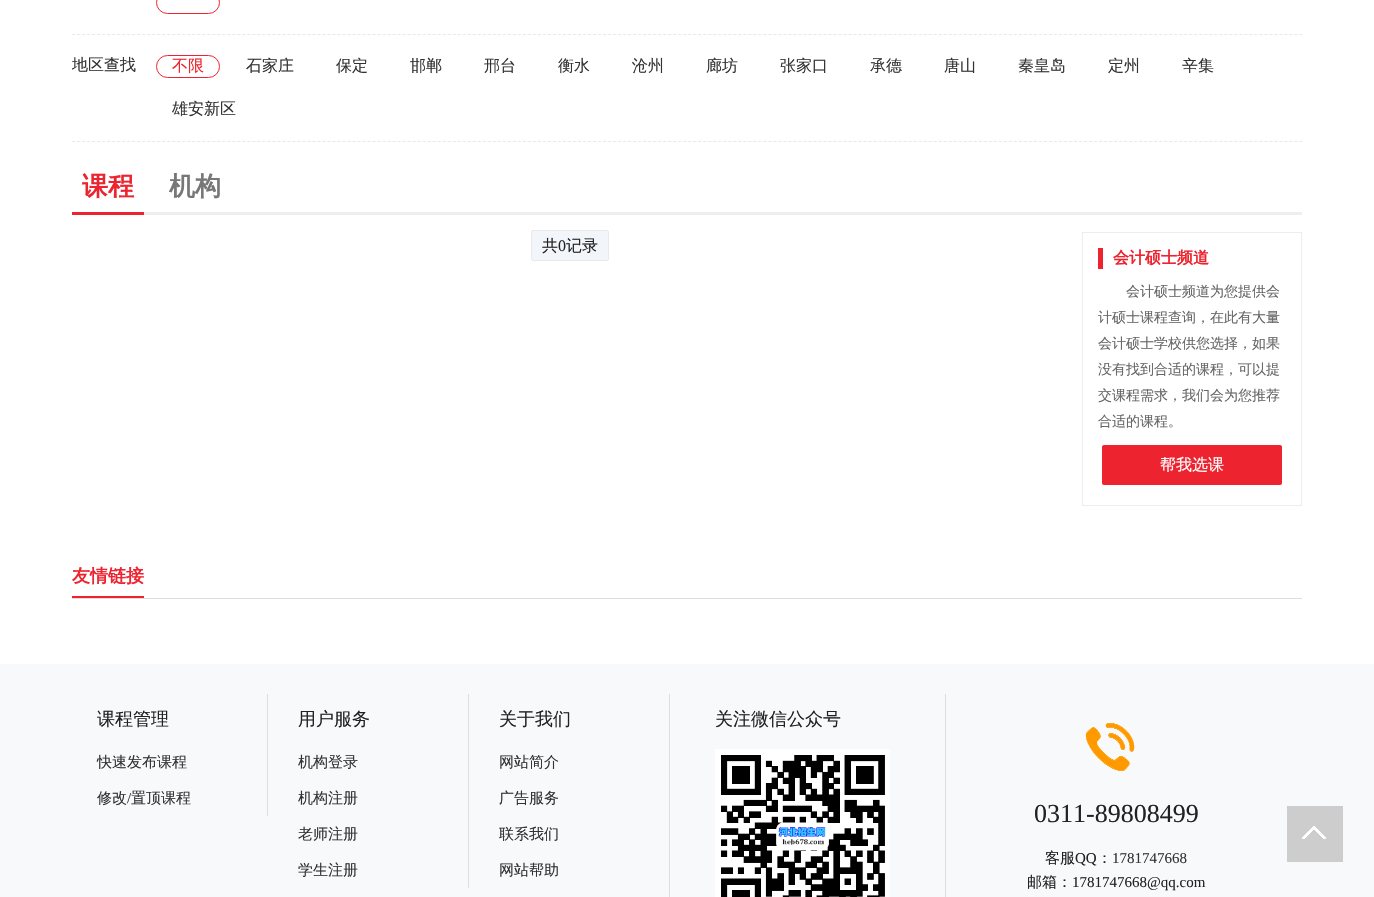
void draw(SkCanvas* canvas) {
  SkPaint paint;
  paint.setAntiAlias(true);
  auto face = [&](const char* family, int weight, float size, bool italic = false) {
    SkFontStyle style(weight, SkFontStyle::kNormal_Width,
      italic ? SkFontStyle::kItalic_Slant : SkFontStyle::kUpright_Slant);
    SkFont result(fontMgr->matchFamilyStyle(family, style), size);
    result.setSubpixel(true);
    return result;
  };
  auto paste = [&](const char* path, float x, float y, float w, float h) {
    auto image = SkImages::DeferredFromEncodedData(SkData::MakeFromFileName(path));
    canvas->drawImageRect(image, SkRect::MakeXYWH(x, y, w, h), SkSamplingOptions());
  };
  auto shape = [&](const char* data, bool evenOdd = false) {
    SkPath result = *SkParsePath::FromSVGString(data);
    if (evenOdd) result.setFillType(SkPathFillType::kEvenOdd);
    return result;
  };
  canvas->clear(0xffffffff);
  paint.setStroke(true);
  paint.setStrokeWidth(1);
  paint.setColor(0xffe8e8e8);
  paint.setPathEffect(SkDashPathEffect::Make({{3, 2.01f}}, 0));
  canvas->drawPath(shape("M72 34.5H1302"), paint);
  paint.setPathEffect(nullptr);
  paint.setColor(0xffed232f);
  canvas->drawRoundRect(SkRect::MakeXYWH(156.5f, -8.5f, 63, 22), 11, 11, paint);
  paint.setColor(0xffe8e8e8);
  paint.setPathEffect(SkDashPathEffect::Make({{3, 2.01f}}, 0));
  canvas->drawPath(shape("M72 141.5H1302"), paint);
  paint.setPathEffect(nullptr);
  paint.setColor(0xffed232f);
  canvas->drawRoundRect(SkRect::MakeXYWH(156.5f, 55.5f, 63, 22), 11, 11, paint);
  paint.setStroke(false);
  paint.setColor(0xffeeeeee);
  canvas->drawRect(SkRect::MakeXYWH(144, 212, 1158, 3), paint);
  paint.setColor(0xffed232f);
  canvas->drawRect(SkRect::MakeXYWH(72, 212, 72, 3), paint);
  paint.setColor(0xfff2f5f9);
  canvas->drawRoundRect(SkRect::MakeXYWH(531.5f, 230.5f, 77, 30), 1.5f, 1.5f, paint);
  paint.setStroke(true);
  paint.setColor(0xffe9e9e9);
  canvas->drawRoundRect(SkRect::MakeXYWH(531.5f, 230.5f, 77, 30), 1.5f, 1.5f, paint);
  paint.setColor(0xffeaeef1);
  canvas->drawRect(SkRect::MakeXYWH(1082.5f, 232.5f, 219, 273), paint);
  paint.setStroke(false);
  paint.setColor(0xffed232f);
  canvas->drawRect(SkRect::MakeXYWH(1098, 248, 5, 21), paint);
  canvas->drawRoundRect(SkRect::MakeXYWH(1102, 445, 180, 40), 2, 2, paint);
  {
    const struct { float x, y, w, h; SkColor color; } items[] = {
      {72, 598, 1230, 1, 0xffdddddd},
      {72, 596, 72, 2, 0xffed232f},
      {0, 664, 1374, 233, 0xfff7f9fb},
      {267, 694, 1, 122, 0xffdedede},
      {468, 694, 1, 194, 0xffdedede},
      {669, 694, 1, 203, 0xffdedede},
      {945, 694, 1, 203, 0xffdedede},
    };
    for (auto [x, y, w, h, color] : items) {
      paint.setColor(color);
      canvas->drawRect(SkRect::MakeXYWH(x, y, w, h), paint);
    }
  }
  paste("img/1.png", 715, 749, 175, 148);
  paste("img/2.png", 1085, 723, 50, 48);
  paste("img/3.png", 1287, 806, 56, 56);
  auto f0 = face("WenQuanYi Zen Hei", 500, 16);
  paint.setColor(0xff333333);
  canvas->drawString("地区查找", 72, 70, f0, paint);
  paint.setColor(0xffed232f);
  canvas->drawString("不限", 172, 71, f0, paint);
  paint.setColor(0xff333333);
  {
    const struct { const char* s; float x, y; } items[] = {
      {"石家庄", 246, 71},
      {"保定", 336, 71},
      {"邯郸", 410, 71},
      {"邢台", 484, 71},
      {"衡水", 558, 71},
      {"沧州", 632, 71},
      {"廊坊", 706, 71},
      {"张家口", 780, 71},
      {"承德", 870, 71},
      {"唐山", 944, 71},
      {"秦皇岛", 1018, 71},
      {"定州", 1108, 71},
      {"辛集", 1182, 71},
      {"雄安新区", 172, 114},
    };
    for (auto [s, x, y] : items) {
      canvas->drawString(s, x, y, f0, paint);
    }
  }
  auto f1 = face("WenQuanYi Zen Hei", 700, 26);
  paint.setColor(0xffed232f);
  canvas->drawString("课程", 82, 195, f1, paint);
  paint.setColor(0xff777777);
  canvas->drawString("机构", 169, 195, f1, paint);
  paint.setColor(0xff222222);
  canvas->drawString("共", 542, 251, f0, paint);
  auto f2 = face("Liberation Serif", 400, 16);
  canvas->drawString("0", 558, 251, f2, paint);
  canvas->drawString("记录", 566, 251, f0, paint);
  auto f3 = face("WenQuanYi Zen Hei", 700, 16);
  paint.setColor(0xffed232f);
  canvas->drawString("会计硕士频道", 1113, 263, f3, paint);
  auto f4 = face("WenQuanYi Zen Hei", 500, 14);
  paint.setColor(0xff666666);
  {
    const struct { const char* s; float x, y; } items[] = {
      {"会计硕士频道为您提供会", 1126, 296},
      {"计硕士课程查询，在此有大量", 1098, 322},
      {"会计硕士学校供您选择，如果", 1098, 348},
      {"没有找到合适的课程，可以提", 1098, 374},
      {"交课程需求，我们会为您推荐", 1098, 400},
      {"合适的课程。", 1098, 426},
    };
    for (auto [s, x, y] : items) {
      canvas->drawString(s, x, y, f4, paint);
    }
  }
  paint.setColor(0xffffffff);
  canvas->drawString("帮我选课", 1160, 470, f0, paint);
  auto f5 = face("WenQuanYi Zen Hei", 700, 18);
  paint.setColor(0xffed232f);
  canvas->drawString("友情链接", 72, 582, f5, paint);
  auto f6 = face("WenQuanYi Zen Hei", 500, 18);
  paint.setColor(0xff222222);
  canvas->drawString("课程管理", 97, 725, f6, paint);
  auto f7 = face("WenQuanYi Zen Hei", 500, 15);
  paint.setColor(0xff333333);
  canvas->drawString("快速发布课程", 97, 767, f7, paint);
  canvas->drawString("修改", 97, 803, f7, paint);
  auto f8 = face("Liberation Serif", 400, 15);
  canvas->drawString("/", 127, 803, f8, paint);
  canvas->drawString("置顶课程", 131, 803, f7, paint);
  paint.setColor(0xff222222);
  canvas->drawString("用户服务", 298, 725, f6, paint);
  paint.setColor(0xff333333);
  {
    const struct { const char* s; float x, y; } items[] = {
      {"机构登录", 298, 767},
      {"机构注册", 298, 803},
      {"老师注册", 298, 839},
      {"学生注册", 298, 875},
    };
    for (auto [s, x, y] : items) {
      canvas->drawString(s, x, y, f7, paint);
    }
  }
  paint.setColor(0xff222222);
  canvas->drawString("关于我们", 499, 725, f6, paint);
  paint.setColor(0xff333333);
  {
    const struct { const char* s; float x, y; } items[] = {
      {"网站简介", 499, 767},
      {"广告服务", 499, 803},
      {"联系我们", 499, 839},
      {"网站帮助", 499, 875},
    };
    for (auto [s, x, y] : items) {
      canvas->drawString(s, x, y, f7, paint);
    }
  }
  paint.setColor(0xff222222);
  canvas->drawString("关注微信公众号", 715, 725, f6, paint);
  auto f9 = face("Liberation Serif", 400, 26);
  canvas->drawString("0311-89808499", 1034, 822, f9, paint);
  canvas->drawString("客服", 1045, 863, f7, paint);
  canvas->drawString("QQ", 1075, 863, f8, paint);
  canvas->drawString("：", 1097, 863, f7, paint);
  paint.setColor(0xff333333);
  canvas->drawString("1781747668", 1112, 863, f8, paint);
  paint.setColor(0xff222222);
  canvas->drawString("邮箱：", 1027, 887, f7, paint);
  canvas->drawString("1781747668@qq.com", 1072, 887, f8, paint);
}
